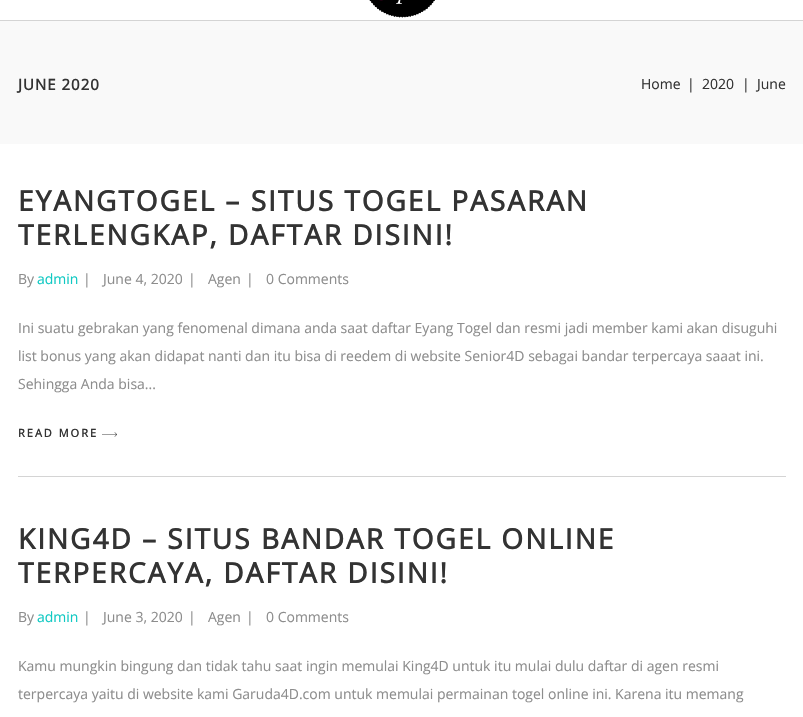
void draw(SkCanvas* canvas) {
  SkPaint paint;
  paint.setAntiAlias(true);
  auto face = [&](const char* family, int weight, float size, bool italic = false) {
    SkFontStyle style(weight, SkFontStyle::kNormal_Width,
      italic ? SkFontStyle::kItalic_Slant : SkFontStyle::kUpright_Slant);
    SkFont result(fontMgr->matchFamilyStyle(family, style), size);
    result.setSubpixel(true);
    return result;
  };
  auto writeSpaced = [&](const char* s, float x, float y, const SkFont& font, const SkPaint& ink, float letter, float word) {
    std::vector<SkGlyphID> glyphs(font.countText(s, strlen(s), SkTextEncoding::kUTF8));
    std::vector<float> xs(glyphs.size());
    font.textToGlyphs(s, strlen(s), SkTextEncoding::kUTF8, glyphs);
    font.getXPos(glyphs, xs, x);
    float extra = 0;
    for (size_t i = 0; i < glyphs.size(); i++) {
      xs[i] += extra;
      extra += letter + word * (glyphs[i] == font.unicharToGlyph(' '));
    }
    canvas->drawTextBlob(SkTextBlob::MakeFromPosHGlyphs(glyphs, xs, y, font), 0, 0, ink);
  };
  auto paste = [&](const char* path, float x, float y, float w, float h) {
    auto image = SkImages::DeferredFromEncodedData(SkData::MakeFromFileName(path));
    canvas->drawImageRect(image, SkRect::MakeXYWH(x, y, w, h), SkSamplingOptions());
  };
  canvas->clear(0xffffffff);
  paint.setColor(0xffd4d4d4);
  canvas->drawRect(SkRect::MakeXYWH(0, 20, 803, 1), paint);
  paste("img/1.png", 369, 0, 66, 18);
  paint.setColor(0xfff9f9f9);
  canvas->drawRect(SkRect::MakeXYWH(0, 21, 803, 123), paint);
  paint.setColor(0xffd4d4d4);
  canvas->drawRect(SkRect::MakeXYWH(18, 476, 768, 1), paint);
  paste("img/2.png", 102, 432, 15, 5);
  auto f0 = face("Open Sans", 700, 15);
  paint.setColor(0xff333333);
  writeSpaced("JUNE 2020", 18, 90, f0, paint, 1, 0);
  auto f1 = face("Open Sans", 400, 14);
  {
    const struct { const char* s; float x, y; } items[] = {
      {"Home", 641, 89},
      {"|", 687, 89},
      {"2020", 702, 89},
      {"|", 742, 89},
      {"June", 757, 89},
    };
    for (auto [s, x, y] : items) {
      canvas->drawString(s, x, y, f1, paint);
    }
  }
  auto f2 = face("Open Sans", 700, 28);
  writeSpaced("EYANGTOGEL – SITUS TOGEL PASARAN", 18, 211, f2, paint, 2, 0);
  writeSpaced("TERLENGKAP, DAFTAR DISINI!", 18, 245, f2, paint, 2, 0);
  paint.setColor(0xff8d8d8d);
  canvas->drawString("By", 18, 284, f1, paint);
  paint.setColor(0xff10c9c3);
  canvas->drawString("admin", 37, 284, f1, paint);
  paint.setColor(0xff8d8d8d);
  {
    const struct { const char* s; float x, y; } items[] = {
      {"|", 83, 284},
      {"June 4, 2020", 103, 284},
      {"|", 188, 284},
      {"Agen", 208, 284},
      {"|", 246, 284},
      {"0 Comments", 266, 284},
      {"Ini suatu gebrakan yang fenomenal dimana anda saat daftar Eyang Togel dan resmi jadi member kami akan disuguhi", 18, 333},
      {"list bonus yang akan didapat nanti dan itu bisa di reedem di website Senior4D sebagai bandar terpercaya saaat ini.", 18, 361},
      {"Sehingga Anda bisa...", 18, 389},
    };
    for (auto [s, x, y] : items) {
      canvas->drawString(s, x, y, f1, paint);
    }
  }
  auto f3 = face("Open Sans", 700, 11);
  paint.setColor(0xff333333);
  writeSpaced("READ MORE", 18, 437, f3, paint, 2, 0);
  writeSpaced("KING4D – SITUS BANDAR TOGEL ONLINE", 18, 549, f2, paint, 2, 0);
  writeSpaced("TERPERCAYA, DAFTAR DISINI!", 18, 583, f2, paint, 2, 0);
  paint.setColor(0xff8d8d8d);
  canvas->drawString("By", 18, 622, f1, paint);
  paint.setColor(0xff10c9c3);
  canvas->drawString("admin", 37, 622, f1, paint);
  paint.setColor(0xff8d8d8d);
  {
    const struct { const char* s; float x, y; } items[] = {
      {"|", 83, 622},
      {"June 3, 2020", 103, 622},
      {"|", 188, 622},
      {"Agen", 208, 622},
      {"|", 246, 622},
      {"0 Comments", 266, 622},
      {"Kamu mungkin bingung dan tidak tahu saat ingin memulai King4D untuk itu mulai dulu daftar di agen resmi", 18, 671},
      {"terpercaya yaitu di website kami Garuda4D.com untuk memulai permainan togel online ini. Karena itu memang", 18, 699},
    };
    for (auto [s, x, y] : items) {
      canvas->drawString(s, x, y, f1, paint);
    }
  }
}
